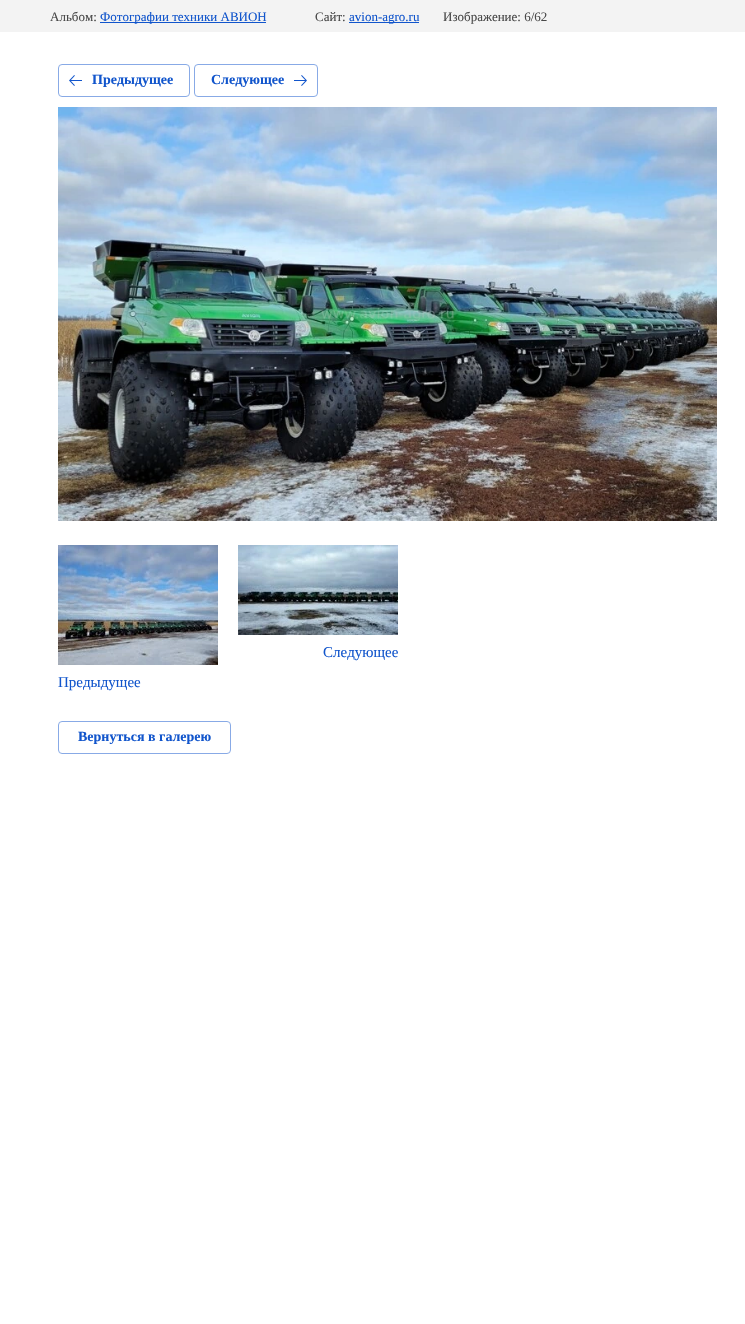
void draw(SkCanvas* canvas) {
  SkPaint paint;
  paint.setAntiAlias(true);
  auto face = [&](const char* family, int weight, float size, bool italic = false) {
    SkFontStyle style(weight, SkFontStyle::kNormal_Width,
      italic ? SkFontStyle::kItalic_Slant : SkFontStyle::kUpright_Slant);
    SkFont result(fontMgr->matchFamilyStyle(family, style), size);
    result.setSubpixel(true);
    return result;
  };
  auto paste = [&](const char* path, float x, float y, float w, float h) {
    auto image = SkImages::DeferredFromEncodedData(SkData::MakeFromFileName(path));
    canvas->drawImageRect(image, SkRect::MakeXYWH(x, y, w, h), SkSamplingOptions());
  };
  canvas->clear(0xffffffff);
  {
    const struct { float x, y, w, h; SkColor color; } items[] = {
      {0, 0, 745, 32, 0xfff3f3f3},
      {100, 22, 166, 1, 0xff1155cc},
      {349, 22, 70, 1, 0xff1155cc},
    };
    for (auto [x, y, w, h, color] : items) {
      paint.setColor(color);
      canvas->drawRect(SkRect::MakeXYWH(x, y, w, h), paint);
    }
  }
  paint.setStroke(true);
  paint.setStrokeWidth(1);
  paint.setColor(0xff88aae6);
  canvas->drawRoundRect(SkRect::MakeXYWH(58.5f, 64.5f, 131, 32), 3.5f, 3.5f, paint);
  paste("img/1.png", 69, 75, 13, 11);
  canvas->drawRoundRect(SkRect::MakeXYWH(194.5f, 64.5f, 123, 32), 3.5f, 3.5f, paint);
  paste("img/2.png", 294, 75, 13, 11);
  paste("img/3.png", 58, 107, 659, 414);
  paste("img/4.png", 238, 545, 160, 90);
  paste("img/5.png", 58, 545, 160, 120);
  canvas->drawRoundRect(SkRect::MakeXYWH(58.5f, 721.5f, 172, 32), 3.5f, 3.5f, paint);
  auto f0 = face("Liberation Serif", 400, 13);
  paint.setStroke(false);
  paint.setColor(0xff484848);
  canvas->drawString("Альбом:", 50, 21, f0, paint);
  paint.setColor(0xff1155cc);
  canvas->drawString("Фотографии техники АВИОН", 100, 21, f0, paint);
  paint.setColor(0xff484848);
  canvas->drawString("Сайт:", 315, 21, f0, paint);
  paint.setColor(0xff1155cc);
  canvas->drawString("avion-agro.ru", 349, 21, f0, paint);
  paint.setColor(0xff484848);
  canvas->drawString("Изображение: 6/62", 443, 21, f0, paint);
  auto f1 = face("Liberation Serif", 700, 14);
  paint.setColor(0xff1155cc);
  canvas->drawString("Предыдущее", 92, 84, f1, paint);
  canvas->drawString("Следующее", 211, 84, f1, paint);
  auto f2 = face("Liberation Serif", 400, 15);
  canvas->drawString("Следующее", 323, 657, f2, paint);
  canvas->drawString("Предыдущее", 58, 687, f2, paint);
  canvas->drawString("Вернуться в галерею", 78, 741, f1, paint);
}
